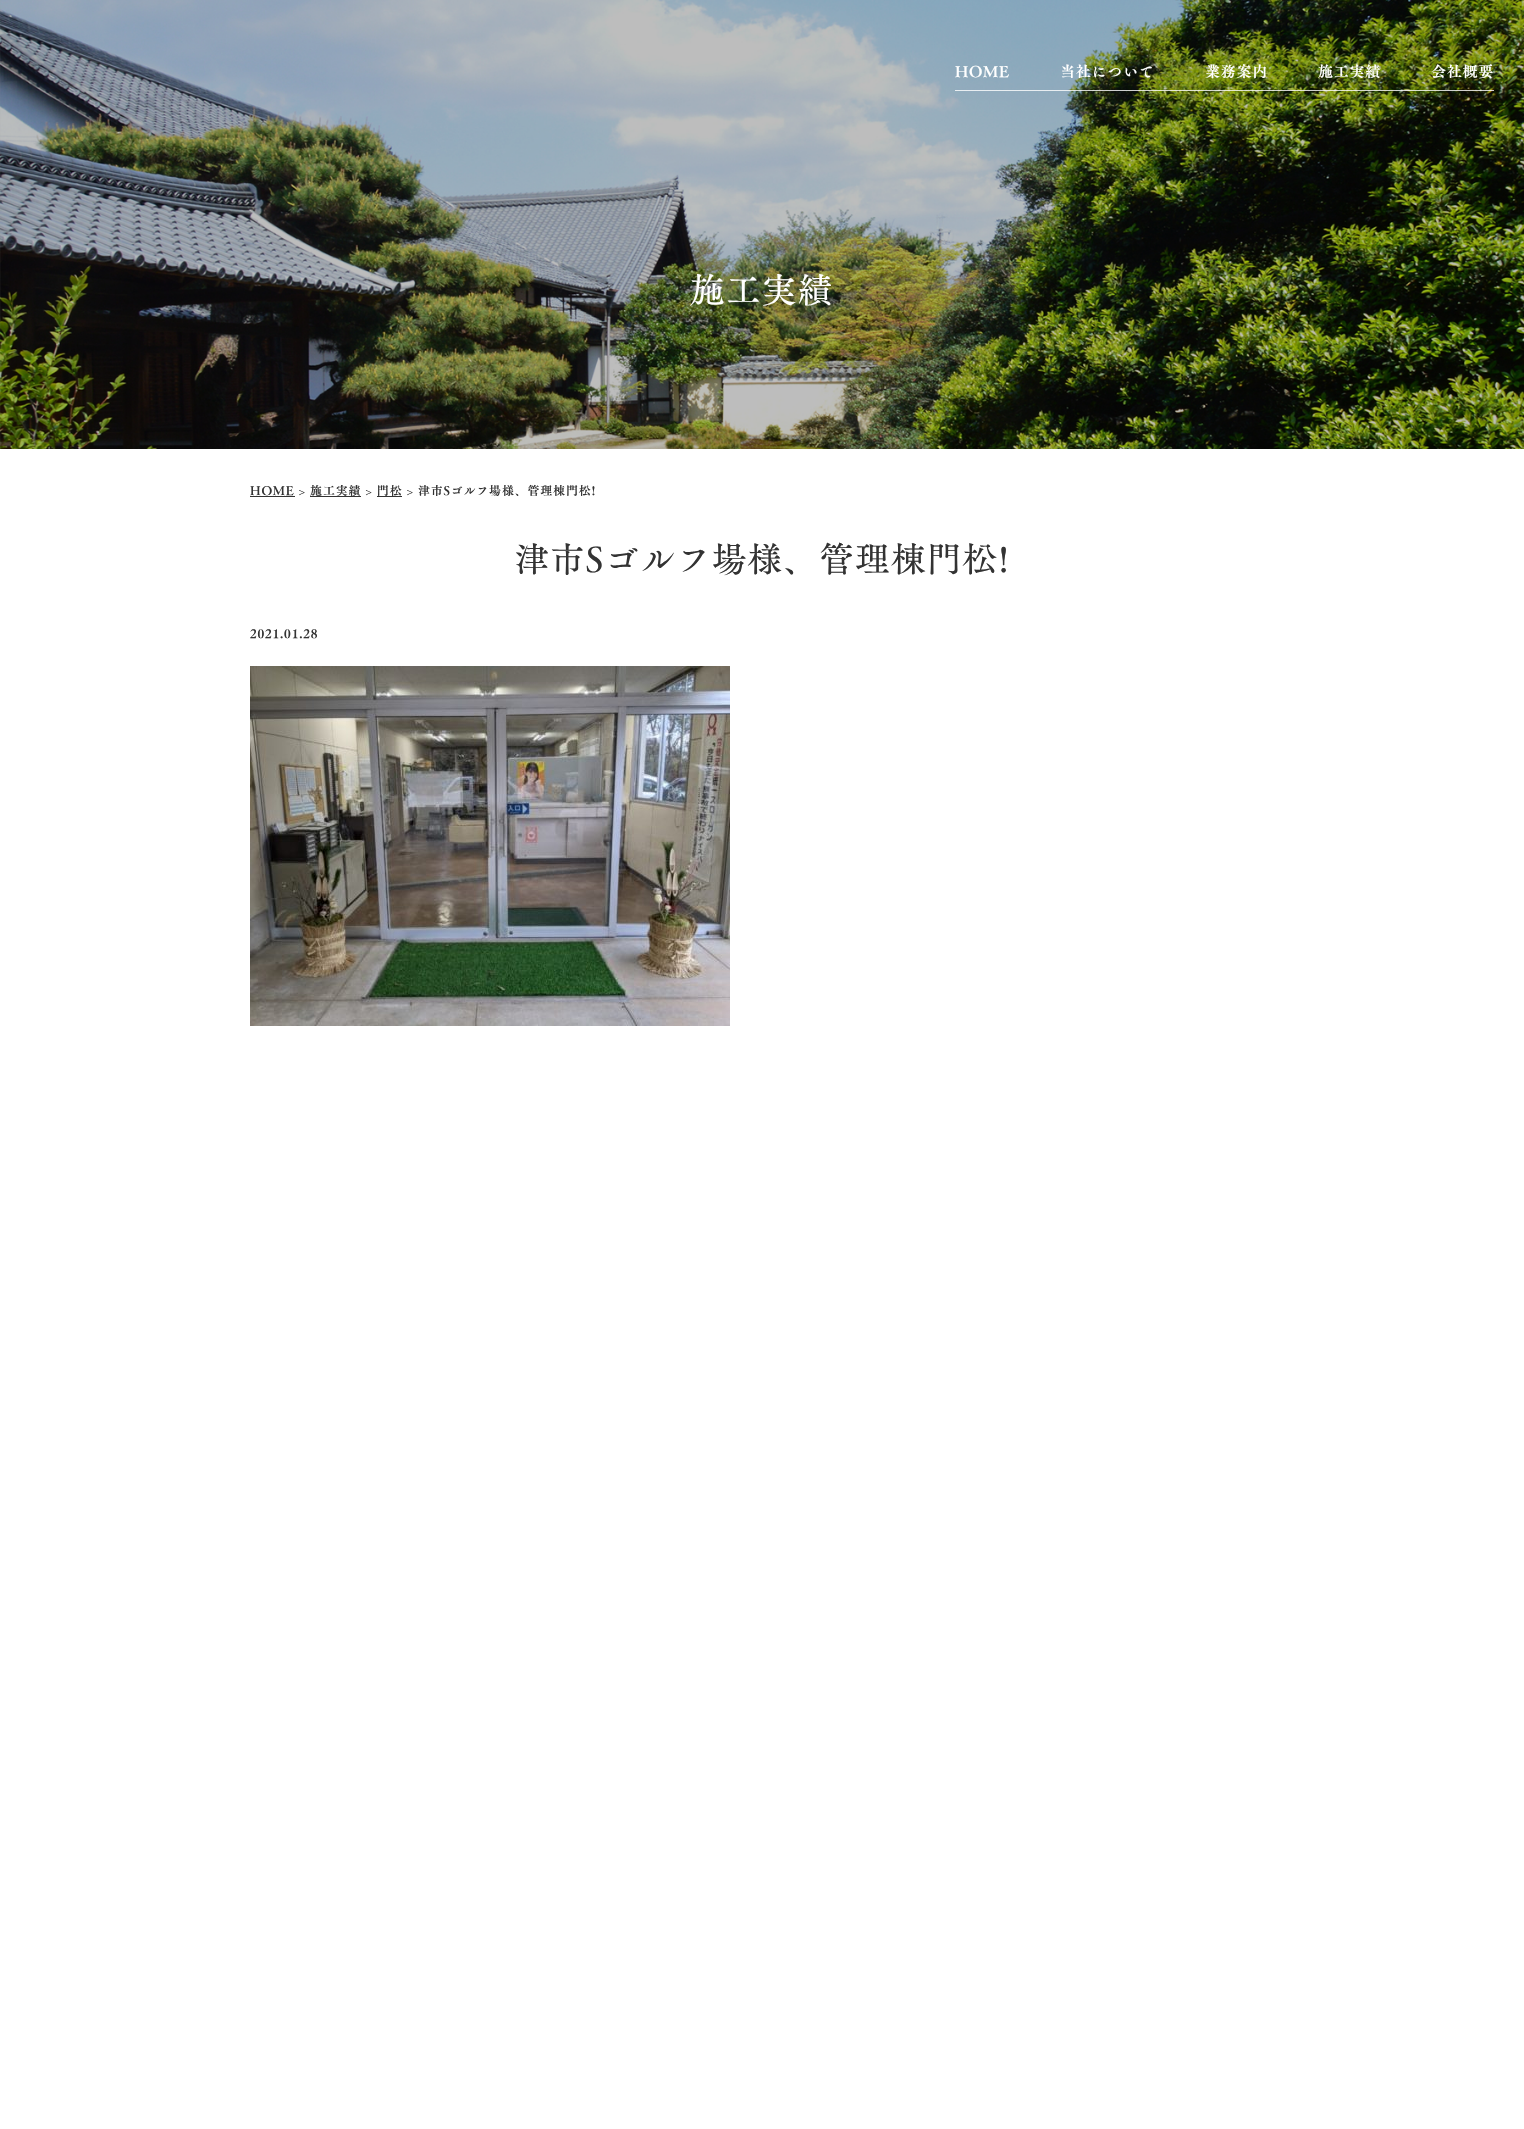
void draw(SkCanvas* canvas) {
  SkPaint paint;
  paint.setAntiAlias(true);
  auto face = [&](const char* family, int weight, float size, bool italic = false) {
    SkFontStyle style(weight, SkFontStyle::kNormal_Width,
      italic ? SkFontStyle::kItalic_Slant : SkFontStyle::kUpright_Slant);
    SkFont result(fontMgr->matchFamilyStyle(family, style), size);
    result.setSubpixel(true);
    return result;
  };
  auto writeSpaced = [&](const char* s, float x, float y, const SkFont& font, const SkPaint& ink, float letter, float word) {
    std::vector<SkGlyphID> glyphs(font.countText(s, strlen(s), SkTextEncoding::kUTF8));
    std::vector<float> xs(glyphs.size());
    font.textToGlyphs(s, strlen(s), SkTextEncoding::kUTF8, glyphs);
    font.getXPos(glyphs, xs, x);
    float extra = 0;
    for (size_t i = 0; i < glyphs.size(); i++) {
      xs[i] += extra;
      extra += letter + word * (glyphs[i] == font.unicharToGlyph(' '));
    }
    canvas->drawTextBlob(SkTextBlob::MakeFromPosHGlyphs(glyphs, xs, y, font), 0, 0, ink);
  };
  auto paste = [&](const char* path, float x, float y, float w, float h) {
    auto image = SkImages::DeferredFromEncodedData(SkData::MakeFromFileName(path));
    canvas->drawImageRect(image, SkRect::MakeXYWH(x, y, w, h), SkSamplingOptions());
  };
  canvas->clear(0xffffffff);
  paste("img/1.png", 0, 0, 1524, 449);
  {
    const struct { float x, y, w, h; SkColor color; } items[] = {
      {955, 90, 539, 1, 0xccfefefe},
      {250, 496, 45, 1, 0xff333333},
      {310, 496, 51, 1, 0xff333333},
      {377, 496, 25, 1, 0xff333333},
    };
    for (auto [x, y, w, h, color] : items) {
      paint.setColor(color);
      canvas->drawRect(SkRect::MakeXYWH(x, y, w, h), paint);
    }
  }
  paste("img/2.png", 250, 666, 480, 360);
  auto f0 = face("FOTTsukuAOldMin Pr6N", 700, 15);
  paint.setColor(0xffffffff);
  {
    const struct { const char* s; float x, y; } items[] = {
      {"HOME", 955, 77},
      {"当社について", 1060, 77},
      {"業務案内", 1205, 77},
      {"施工実績", 1318, 77},
      {"会社概要", 1431, 77},
    };
    for (auto [s, x, y] : items) {
      writeSpaced(s, x, y, f0, paint, 0.75f, 0);
    }
  }
  auto f1 = face("FOTTsukuAOldMin Pr6N", 500, 35);
  writeSpaced("施工実績", 690, 303, f1, paint, 0.8f, 0);
  auto f2 = face("FOTTsukuAOldMin Pr6N", 700, 12);
  paint.setColor(0xff333333);
  writeSpaced("HOME > 施工実績 > 門松 > 津市Sゴルフ場様、管理棟門松!", 250, 495, f2, paint, 0.8f, 0);
  writeSpaced("津市Sゴルフ場様、管理棟門松!", 514, 572, f1, paint, 0.8f, 0);
  writeSpaced("2021.01.28", 250, 638, f2, paint, 0.8f, 0);
}
